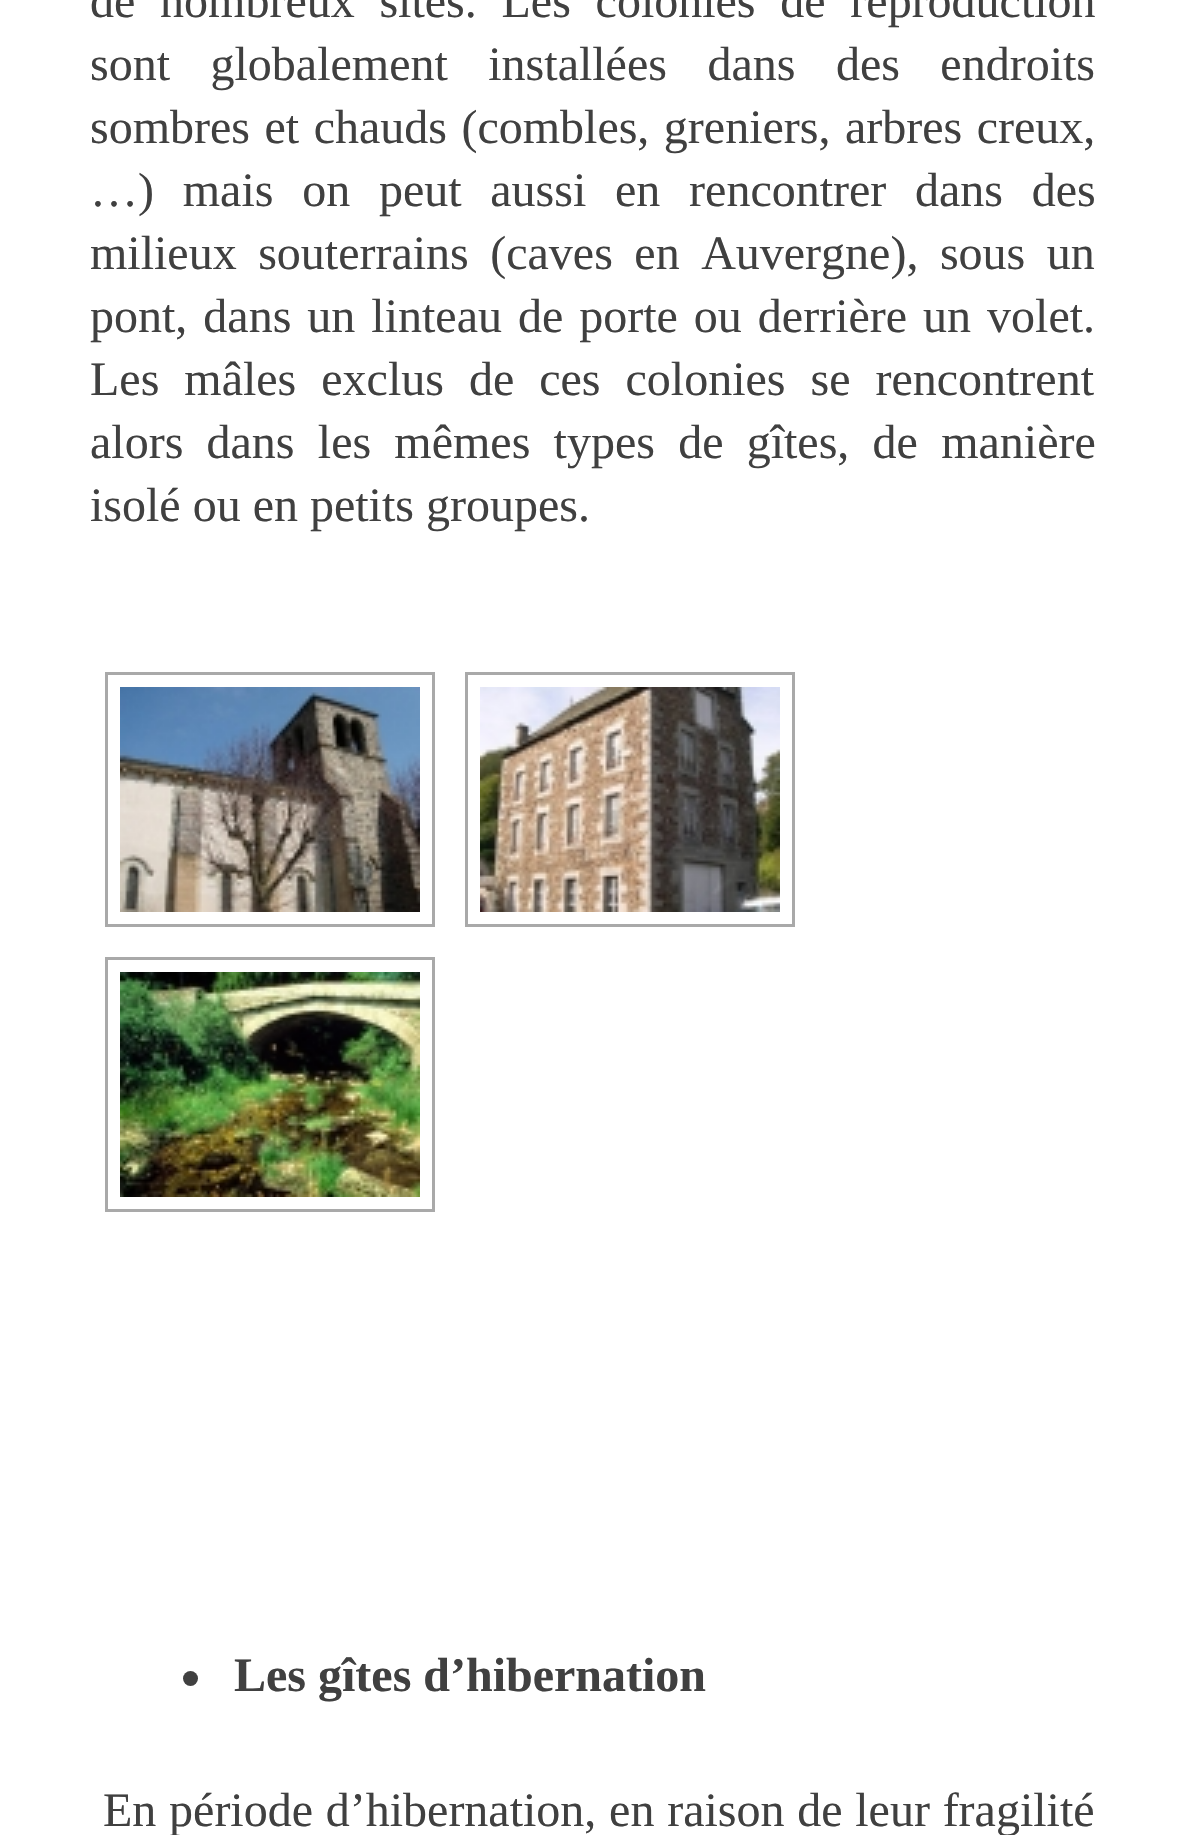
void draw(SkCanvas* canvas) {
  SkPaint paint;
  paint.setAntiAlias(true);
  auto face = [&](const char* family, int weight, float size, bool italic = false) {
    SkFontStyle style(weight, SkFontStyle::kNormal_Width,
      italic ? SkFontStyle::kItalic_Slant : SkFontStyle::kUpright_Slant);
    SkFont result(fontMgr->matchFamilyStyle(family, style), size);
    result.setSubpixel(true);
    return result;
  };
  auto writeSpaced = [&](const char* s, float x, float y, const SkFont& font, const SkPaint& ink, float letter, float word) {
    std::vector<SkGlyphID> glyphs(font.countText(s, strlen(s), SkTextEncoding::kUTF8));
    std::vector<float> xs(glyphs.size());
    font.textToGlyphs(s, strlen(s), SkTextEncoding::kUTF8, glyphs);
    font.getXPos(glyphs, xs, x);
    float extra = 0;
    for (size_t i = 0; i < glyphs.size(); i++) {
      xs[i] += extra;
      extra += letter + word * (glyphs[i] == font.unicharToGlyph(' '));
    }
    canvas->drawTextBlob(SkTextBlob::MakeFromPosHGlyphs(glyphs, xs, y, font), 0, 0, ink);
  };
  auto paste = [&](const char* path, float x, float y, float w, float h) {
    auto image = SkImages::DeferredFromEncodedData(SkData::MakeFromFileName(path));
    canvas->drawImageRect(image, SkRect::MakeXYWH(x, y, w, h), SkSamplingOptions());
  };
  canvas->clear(0xffffffff);
  paint.setStroke(true);
  paint.setStrokeWidth(3);
  paint.setColor(0xffa9a9a9);
  canvas->drawRect(SkRect::MakeXYWH(106.5f, 673.5f, 327, 252), paint);
  paste("img/1.png", 120, 687, 300, 225);
  canvas->drawRect(SkRect::MakeXYWH(466.5f, 673.5f, 327, 252), paint);
  paste("img/2.png", 480, 687, 300, 225);
  canvas->drawRect(SkRect::MakeXYWH(106.5f, 958.5f, 327, 252), paint);
  paste("img/3.png", 120, 972, 300, 225);
  paint.setStroke(false);
  paint.setColor(0xff404040);
  canvas->drawCircle(190.5f, 1678.5f, 7.5f, paint);
  auto f0 = face("Liberation Serif", 400, 48);
  writeSpaced("de nombreux sites. Les colonies de reproduction", 90, 17, f0, paint, 0, 12.75f);
  writeSpaced("sont globalement installées dans des endroits", 90, 80, f0, paint, 0, 28.5f);
  writeSpaced("sombres et chauds (combles, greniers, arbres creux,", 90, 143, f0, paint, 0, 2.5f);
  writeSpaced("…) mais on peut aussi en rencontrer dans des", 90, 206, f0, paint, 0, 16.75f);
  writeSpaced("milieux souterrains (caves en Auvergne), sous un", 90, 269, f0, paint, 0, 9.5f);
  writeSpaced("pont, dans un linteau de porte ou derrière un volet.", 90, 332, f0, paint, 0, 4);
  writeSpaced("Les mâles exclus de ces colonies se rencontrent", 90, 395, f0, paint, 0, 13);
  writeSpaced("alors dans les mêmes types de gîtes, de manière", 90, 458, f0, paint, 0, 11.25f);
  canvas->drawString("isolé ou en petits groupes.", 90, 521, f0, paint);
  auto f1 = face("Liberation Serif", 700, 48);
  canvas->drawString("Les gîtes d’hibernation", 234, 1691, f1, paint);
  writeSpaced("En période d’hibernation, en raison de leur fragilité", 103, 1826, f0, paint, 0, 0.75f);
}
